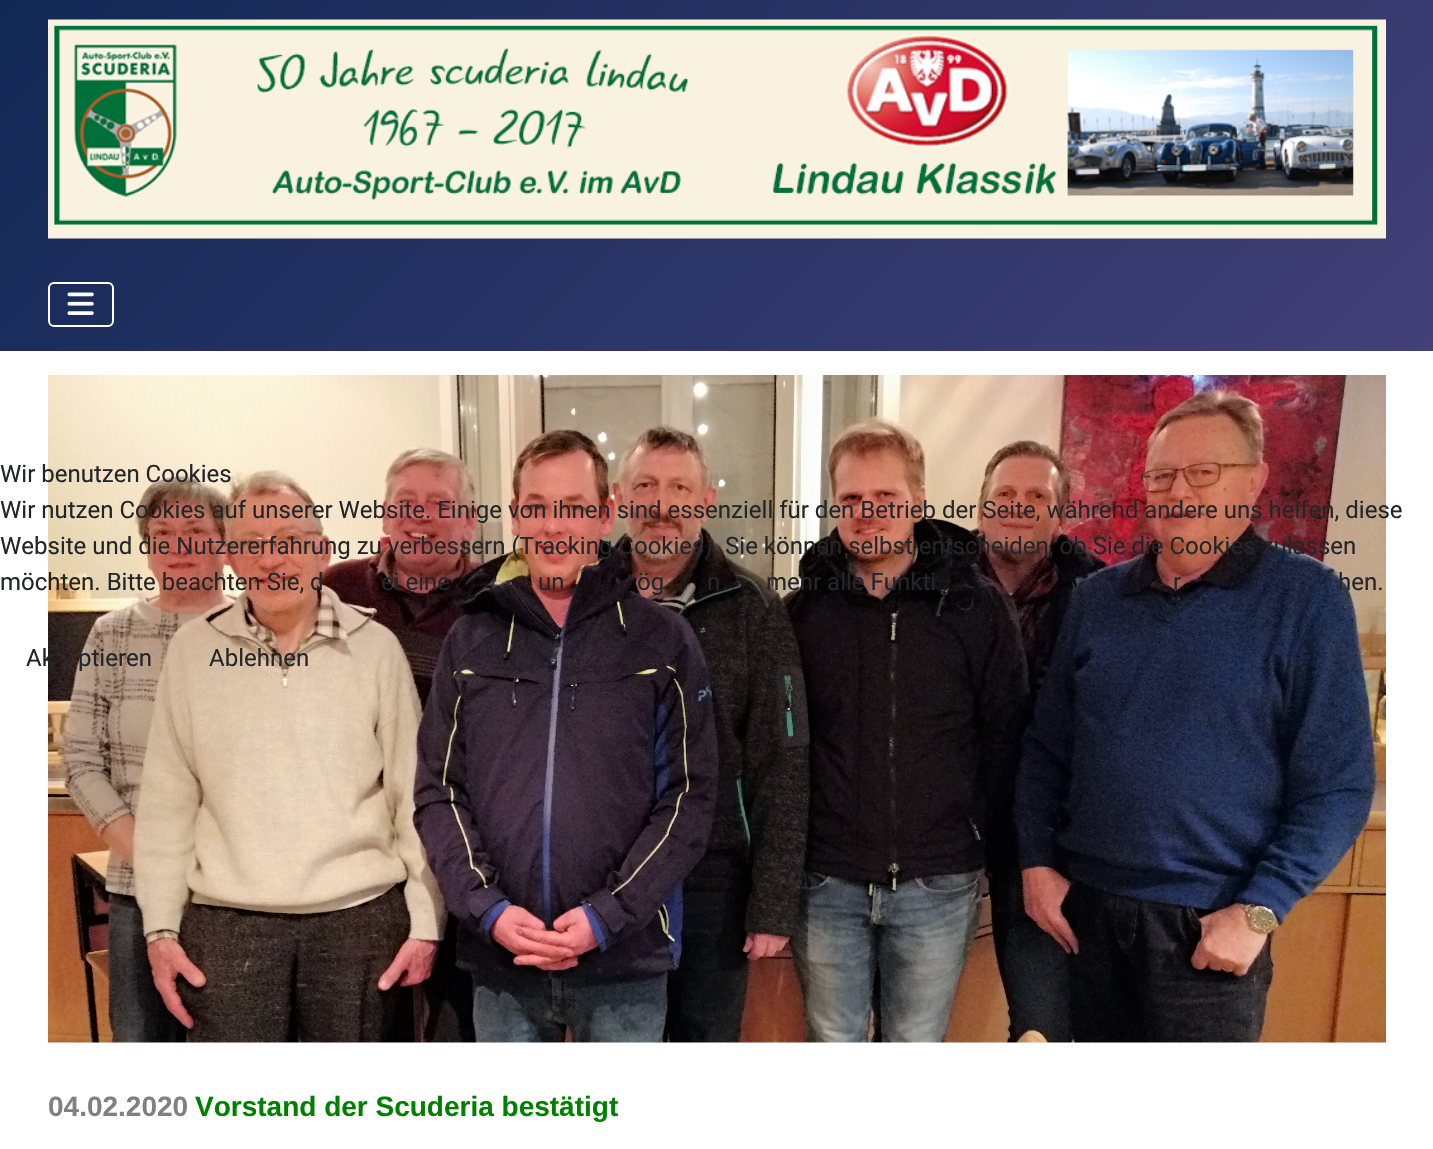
void draw(SkCanvas* canvas) {
  SkPaint paint;
  paint.setAntiAlias(true);
  auto face = [&](const char* family, int weight, float size, bool italic = false) {
    SkFontStyle style(weight, SkFontStyle::kNormal_Width,
      italic ? SkFontStyle::kItalic_Slant : SkFontStyle::kUpright_Slant);
    SkFont result(fontMgr->matchFamilyStyle(family, style), size);
    result.setSubpixel(true);
    return result;
  };
  auto paste = [&](const char* path, float x, float y, float w, float h) {
    auto image = SkImages::DeferredFromEncodedData(SkData::MakeFromFileName(path));
    canvas->drawImageRect(image, SkRect::MakeXYWH(x, y, w, h), SkSamplingOptions());
  };
  canvas->clear(0xffffffff);
  {
    const SkColor colors[] = {0xff112855, 0xff424077};
    const float stops[] = {0, 1};
    const SkPoint ends[] = {{271, -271}, {1163, 622}};
    paint.setShader(SkGradientShader::MakeLinear(ends, colors, stops, 2, SkTileMode::kClamp));
    paint.setAlpha(255);
  }
  canvas->drawRect(SkRect::MakeXYWH(0, 0, 1433, 351), paint);
  paste("img/1.png", 48, 19, 1338, 220);
  paint.setStroke(true);
  paint.setStrokeWidth(2);
  paint.setShader(nullptr);
  paint.setColor(0xffffffff);
  canvas->drawRoundRect(SkRect::MakeXYWH(49, 283, 64, 43), 5, 5, paint);
  paste("img/2.png", 67, 292, 27, 23);
  paste("img/3.png", 48, 375, 1338, 668);
  auto f0 = face("Roboto", 400, 24);
  paint.setStroke(false);
  paint.setColor(0xff22262a);
  {
    const struct { const char* s; float x, y; } items[] = {
      {"Wir benutzen Cookies", 0, 482},
      {"Wir nutzen Cookies auf unserer Website. Einige von ihnen sind essenziell für den Betrieb der Seite, während andere uns helfen, diese", 0, 518},
      {"Website und die Nutzererfahrung zu verbessern (Tracking Cookies). Sie können selbst entscheiden, ob Sie die Cookies zulassen", 0, 554},
      {"möchten. Bitte beachten Sie, d", 0, 590},
      {"ei eine", 381, 590},
      {"un", 538, 590},
      {"ög", 637, 590},
      {"n", 707, 590},
      {"mehr alle Funkti", 766, 590},
      {"r", 1173, 590},
      {"hen.", 1338, 590},
      {"Ak", 26, 666},
      {"ptieren", 78, 666},
      {"Ablehnen", 209, 666},
    };
    for (auto [s, x, y] : items) {
      canvas->drawString(s, x, y, f0, paint);
    }
  }
  auto f1 = face("Liberation Sans", 700, 28);
  paint.setColor(0xff808080);
  canvas->drawString("04.02.2020", 48, 1116, f1, paint);
  paint.setColor(0xff008000);
  canvas->drawString("Vorstand der Scuderia bestätigt", 195, 1116, f1, paint);
}
